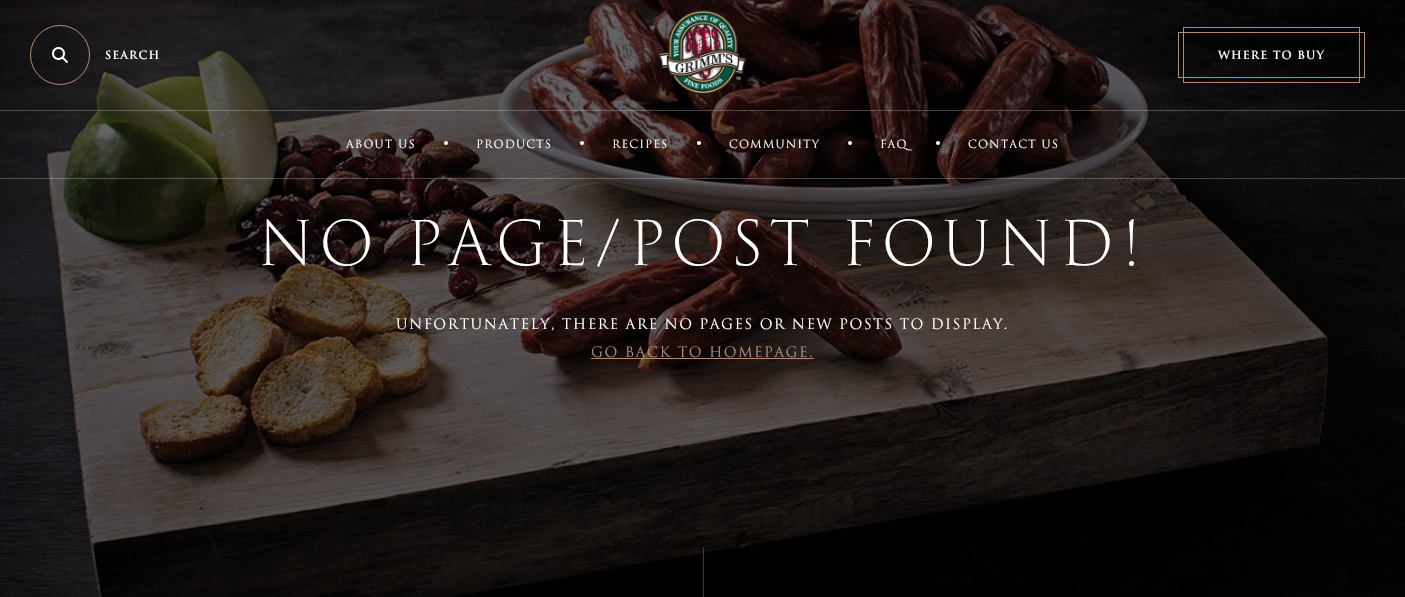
void draw(SkCanvas* canvas) {
  SkPaint paint;
  paint.setAntiAlias(true);
  auto face = [&](const char* family, int weight, float size, bool italic = false) {
    SkFontStyle style(weight, SkFontStyle::kNormal_Width,
      italic ? SkFontStyle::kItalic_Slant : SkFontStyle::kUpright_Slant);
    SkFont result(fontMgr->matchFamilyStyle(family, style), size);
    result.setSubpixel(true);
    return result;
  };
  auto writeSpaced = [&](const char* s, float x, float y, const SkFont& font, const SkPaint& ink, float letter, float word) {
    std::vector<SkGlyphID> glyphs(font.countText(s, strlen(s), SkTextEncoding::kUTF8));
    std::vector<float> xs(glyphs.size());
    font.textToGlyphs(s, strlen(s), SkTextEncoding::kUTF8, glyphs);
    font.getXPos(glyphs, xs, x);
    float extra = 0;
    for (size_t i = 0; i < glyphs.size(); i++) {
      xs[i] += extra;
      extra += letter + word * (glyphs[i] == font.unicharToGlyph(' '));
    }
    canvas->drawTextBlob(SkTextBlob::MakeFromPosHGlyphs(glyphs, xs, y, font), 0, 0, ink);
  };
  auto paste = [&](const char* path, float x, float y, float w, float h) {
    auto image = SkImages::DeferredFromEncodedData(SkData::MakeFromFileName(path));
    canvas->drawImageRect(image, SkRect::MakeXYWH(x, y, w, h), SkSamplingOptions());
  };
  canvas->clear(0xffffffff);
  paste("img/3.png", 0, 0, 1405, 597);
  paint.setColor(0x40ffffff);
  canvas->drawRect(SkRect::MakeXYWH(0, 110, 1405, 1), paint);
  paint.setStroke(true);
  paint.setStrokeWidth(1);
  paint.setColor(0xffb48a72);
  canvas->drawCircle(60, 55, 29.5f, paint);
  paste("img/1.png", 52, 47, 16, 16);
  paste("img/2.png", 657, 10, 91, 89);
  canvas->drawRect(SkRect::MakeXYWH(1178.5f, 32.5f, 186, 45), paint);
  canvas->drawRect(SkRect::MakeXYWH(1183.5f, 27.5f, 176, 55), paint);
  paint.setStroke(false);
  paint.setColor(0x40ffffff);
  canvas->drawRect(SkRect::MakeXYWH(0, 178, 1405, 1), paint);
  paint.setColor(0xffffffff);
  canvas->drawCircle(446, 143, 2, paint);
  canvas->drawCircle(582, 143, 2, paint);
  canvas->drawCircle(699, 143, 2, paint);
  canvas->drawCircle(850, 143, 2, paint);
  canvas->drawCircle(938, 143, 2, paint);
  paint.setColor(0xffb48a72);
  canvas->drawRect(SkRect::MakeXYWH(591, 358, 223, 1), paint);
  paint.setColor(0xff48372e);
  canvas->drawRect(SkRect::MakeXYWH(703, 547, 1, 50), paint);
  auto f0 = face("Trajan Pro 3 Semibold", 600, 11);
  paint.setColor(0xffffffff);
  writeSpaced("SEARCH", 105, 59, f0, paint, 1.1f, 0);
  writeSpaced("WHERE TO BUY", 1218, 59, f0, paint, 1.1f, 0);
  auto f1 = face("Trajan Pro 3", 400, 11);
  {
    const struct { const char* s; float x, y; } items[] = {
      {"ABOUT US", 346, 148},
      {"PRODUCTS", 476, 148},
      {"RECIPES", 612, 148},
      {"COMMUNITY", 729, 148},
      {"FAQ", 880, 148},
      {"CONTACT US", 968, 148},
    };
    for (auto [s, x, y] : items) {
      writeSpaced(s, x, y, f1, paint, 1.1f, 0);
    }
  }
  auto f2 = face("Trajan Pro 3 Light", 300, 60);
  writeSpaced("NO PAGE/POST FOUND!", 258, 265, f2, paint, 6, 0);
  auto f3 = face("Trajan Pro 3", 400, 14);
  writeSpaced("UNFORTUNATELY, THERE ARE NO PAGES OR NEW POSTS TO DISPLAY.", 396, 329, f3, paint, 1.4f, 0);
  paint.setColor(0xffb48a72);
  writeSpaced("GO BACK TO HOMEPAGE.", 591, 357, f3, paint, 1.4f, 0);
}
